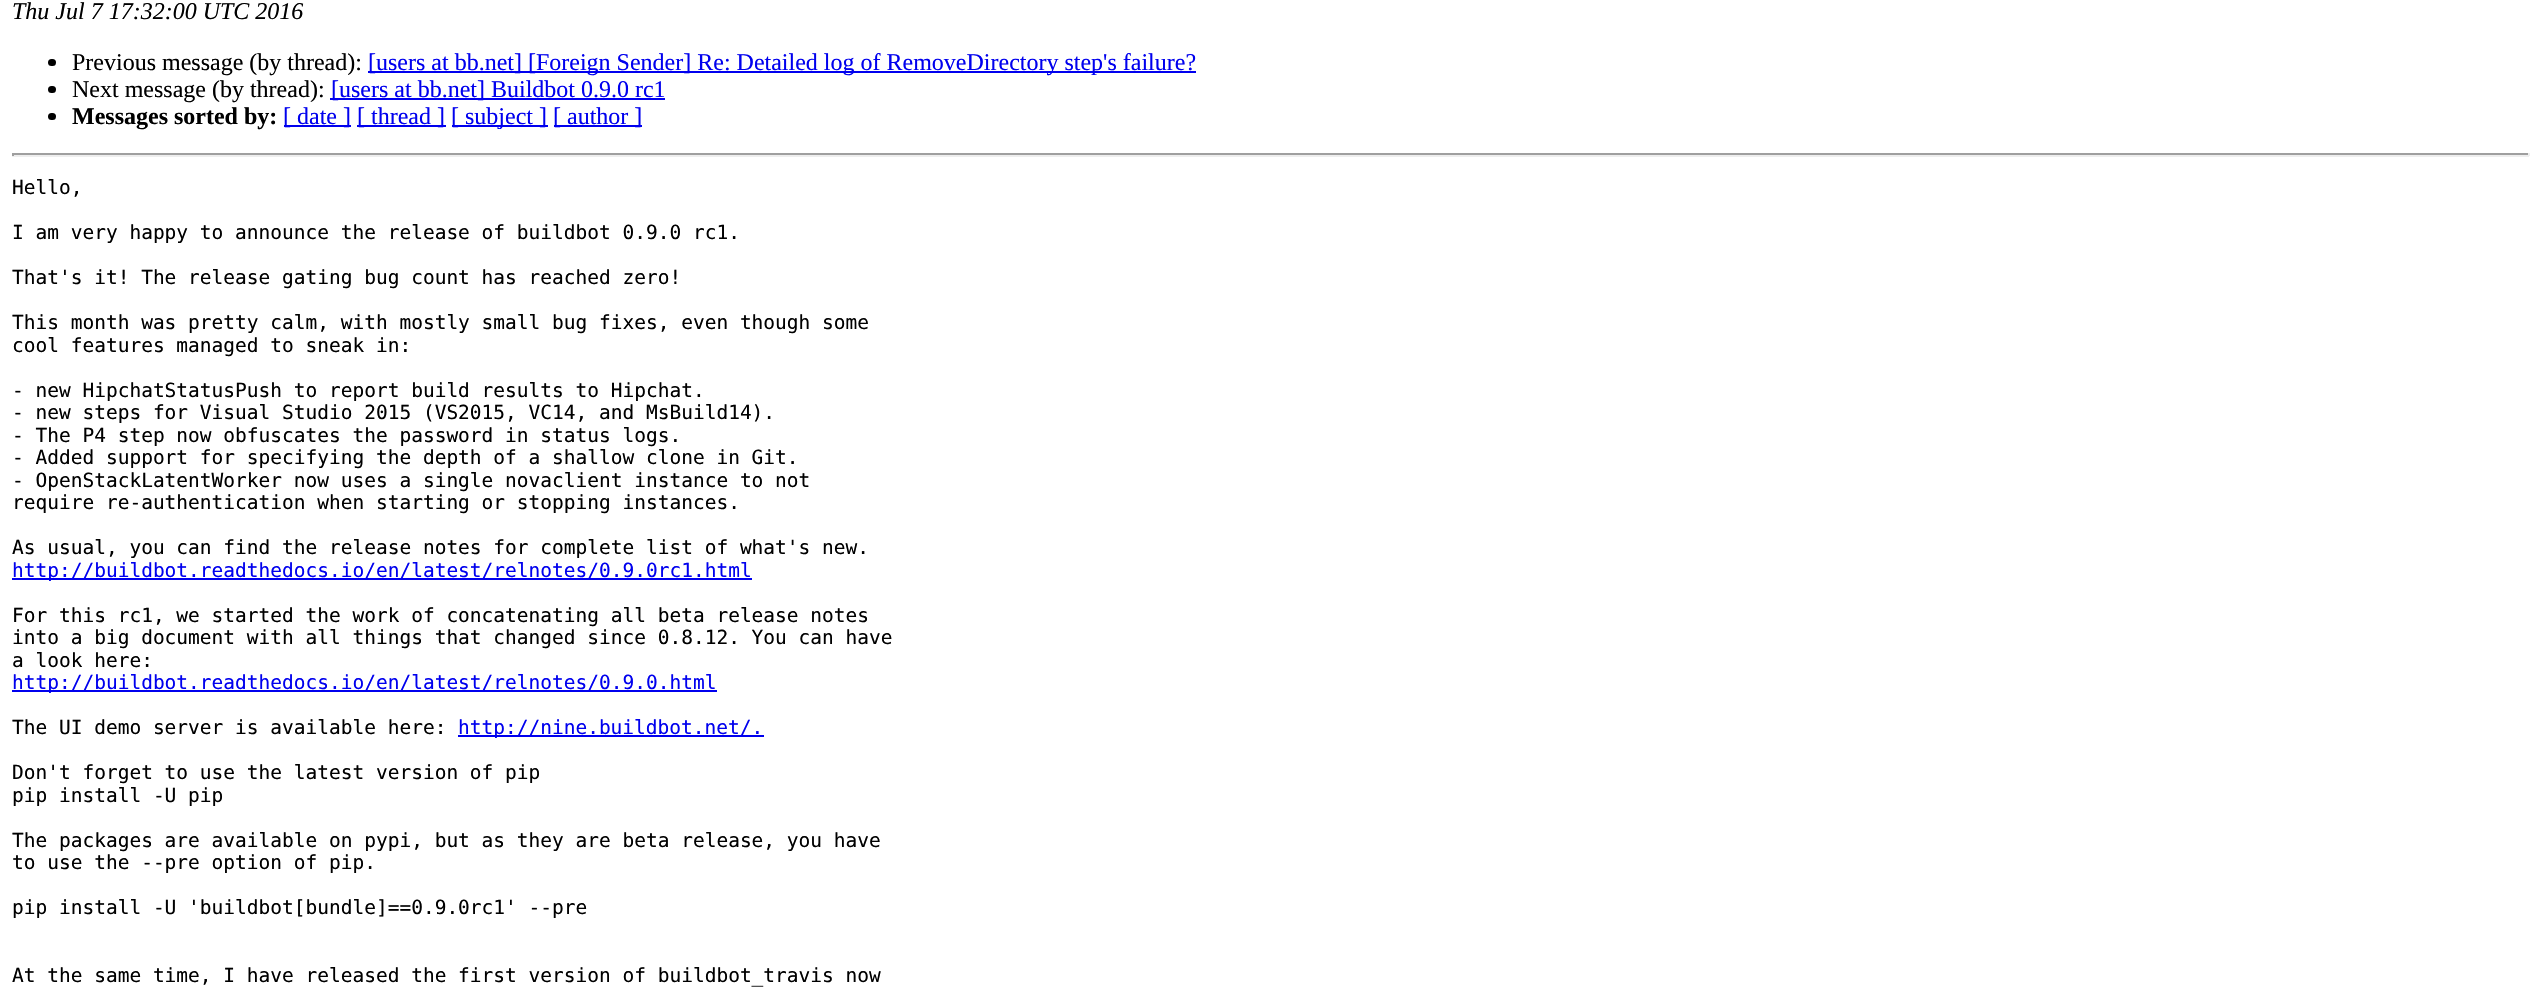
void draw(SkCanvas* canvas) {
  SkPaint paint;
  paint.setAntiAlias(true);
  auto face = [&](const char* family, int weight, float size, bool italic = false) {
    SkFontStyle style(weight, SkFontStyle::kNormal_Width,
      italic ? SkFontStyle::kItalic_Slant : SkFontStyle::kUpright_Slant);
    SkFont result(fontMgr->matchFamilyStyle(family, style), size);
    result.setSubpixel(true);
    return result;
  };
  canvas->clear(0xffffffff);
  paint.setColor(0xff000000);
  canvas->drawRoundRect(SkRect::MakeXYWH(48, 59, 8, 7), 3.5f, 3.5f, paint);
  paint.setColor(0xff0000ee);
  canvas->drawRect(SkRect::MakeXYWH(368, 71, 828, 2), paint);
  paint.setColor(0xff000000);
  canvas->drawRoundRect(SkRect::MakeXYWH(48, 86, 8, 7), 3.5f, 3.5f, paint);
  paint.setColor(0xff0000ee);
  canvas->drawRect(SkRect::MakeXYWH(330, 98, 335, 2), paint);
  paint.setColor(0xff000000);
  canvas->drawRoundRect(SkRect::MakeXYWH(48, 113, 8, 7), 3.5f, 3.5f, paint);
  {
    const struct { float x, y, w, h; SkColor color; } items[] = {
      {284, 125, 67, 2, 0xff0000ee},
      {357, 125, 89, 2, 0xff0000ee},
      {452, 125, 96, 2, 0xff0000ee},
      {554, 125, 88, 2, 0xff0000ee},
      {12, 153, 2517, 2, 0xff9f9f9f},
      {2528, 153, 2, 3, 0xffeeeeee},
      {12, 155, 2517, 2, 0xffeeeeee},
      {12, 153, 2, 3, 0xff9f9f9f},
      {12, 578, 740, 2, 0xff0000ee},
      {12, 690, 705, 2, 0xff0000ee},
      {458, 735, 306, 2, 0xff0000ee},
    };
    for (auto [x, y, w, h, color] : items) {
      paint.setColor(color);
      canvas->drawRect(SkRect::MakeXYWH(x, y, w, h), paint);
    }
  }
  auto f0 = face("Liberation Serif", 400, 24, true);
  paint.setColor(0xff000000);
  canvas->drawString("Thu Jul 7 17:32:00 UTC 2016", 12, 19, f0, paint);
  auto f1 = face("Liberation Serif", 400, 24);
  canvas->drawString("Previous message (by thread):", 72, 70, f1, paint);
  paint.setColor(0xff0000ee);
  canvas->drawString("[users at bb.net] [Foreign Sender] Re: Detailed log of RemoveDirectory step's failure?", 368, 70, f1, paint);
  paint.setColor(0xff000000);
  canvas->drawString("Next message (by thread):", 72, 97, f1, paint);
  paint.setColor(0xff0000ee);
  canvas->drawString("[users at bb.net] Buildbot 0.9.0 rc1", 331, 97, f1, paint);
  auto f2 = face("Liberation Serif", 700, 24);
  paint.setColor(0xff000000);
  canvas->drawString("Messages sorted by:", 72, 124, f2, paint);
  paint.setColor(0xff0000ee);
  {
    const struct { const char* s; float x, y; } items[] = {
      {"[ date ]", 283, 124},
      {"[ thread ]", 357, 124},
      {"[ subject ]", 451, 124},
      {"[ author ]", 553, 124},
    };
    for (auto [s, x, y] : items) {
      canvas->drawString(s, x, y, f1, paint);
    }
  }
  auto f3 = face("DejaVu Sans Mono", 400, 19.5f);
  paint.setColor(0xff000000);
  {
    const struct { const char* s; float x, y; } items[] = {
      {"Hello,", 12, 194},
      {"I am very happy to announce the release of buildbot 0.9.0 rc1.", 12, 239},
      {"That's it! The release gating bug count has reached zero!", 12, 284},
      {"This month was pretty calm, with mostly small bug fixes, even though some", 12, 329},
      {"cool features managed to sneak in:", 12, 352},
      {"- new HipchatStatusPush to report build results to Hipchat.", 12, 397},
      {"- new steps for Visual Studio 2015 (VS2015, VC14, and MsBuild14).", 12, 419},
      {"- The P4 step now obfuscates the password in status logs.", 12, 442},
      {"- Added support for specifying the depth of a shallow clone in Git.", 12, 464},
      {"- OpenStackLatentWorker now uses a single novaclient instance to not", 12, 487},
      {"require re-authentication when starting or stopping instances.", 12, 509},
      {"As usual, you can find the release notes for complete list of what's new.", 12, 554},
    };
    for (auto [s, x, y] : items) {
      canvas->drawString(s, x, y, f3, paint);
    }
  }
  paint.setColor(0xff0000ee);
  canvas->drawString("http://buildbot.readthedocs.io/en/latest/relnotes/0.9.0rc1.html", 12, 577, f3, paint);
  paint.setColor(0xff000000);
  {
    const struct { const char* s; float x, y; } items[] = {
      {"For this rc1, we started the work of concatenating all beta release notes", 12, 622},
      {"into a big document with all things that changed since 0.8.12. You can have", 12, 644},
      {"a look here:", 12, 667},
    };
    for (auto [s, x, y] : items) {
      canvas->drawString(s, x, y, f3, paint);
    }
  }
  paint.setColor(0xff0000ee);
  canvas->drawString("http://buildbot.readthedocs.io/en/latest/relnotes/0.9.0.html", 12, 689, f3, paint);
  paint.setColor(0xff000000);
  canvas->drawString("The UI demo server is available here:", 12, 734, f3, paint);
  paint.setColor(0xff0000ee);
  canvas->drawString("http://nine.buildbot.net/.", 458, 734, f3, paint);
  paint.setColor(0xff000000);
  {
    const struct { const char* s; float x, y; } items[] = {
      {"Don't forget to use the latest version of pip", 12, 779},
      {"pip install -U pip", 12, 802},
      {"The packages are available on pypi, but as they are beta release, you have", 12, 847},
      {"to use the --pre option of pip.", 12, 869},
      {"pip install -U 'buildbot[bundle]==0.9.0rc1' --pre", 12, 914},
      {"At the same time, I have released the first version of buildbot_travis now", 12, 982},
    };
    for (auto [s, x, y] : items) {
      canvas->drawString(s, x, y, f3, paint);
    }
  }
}
